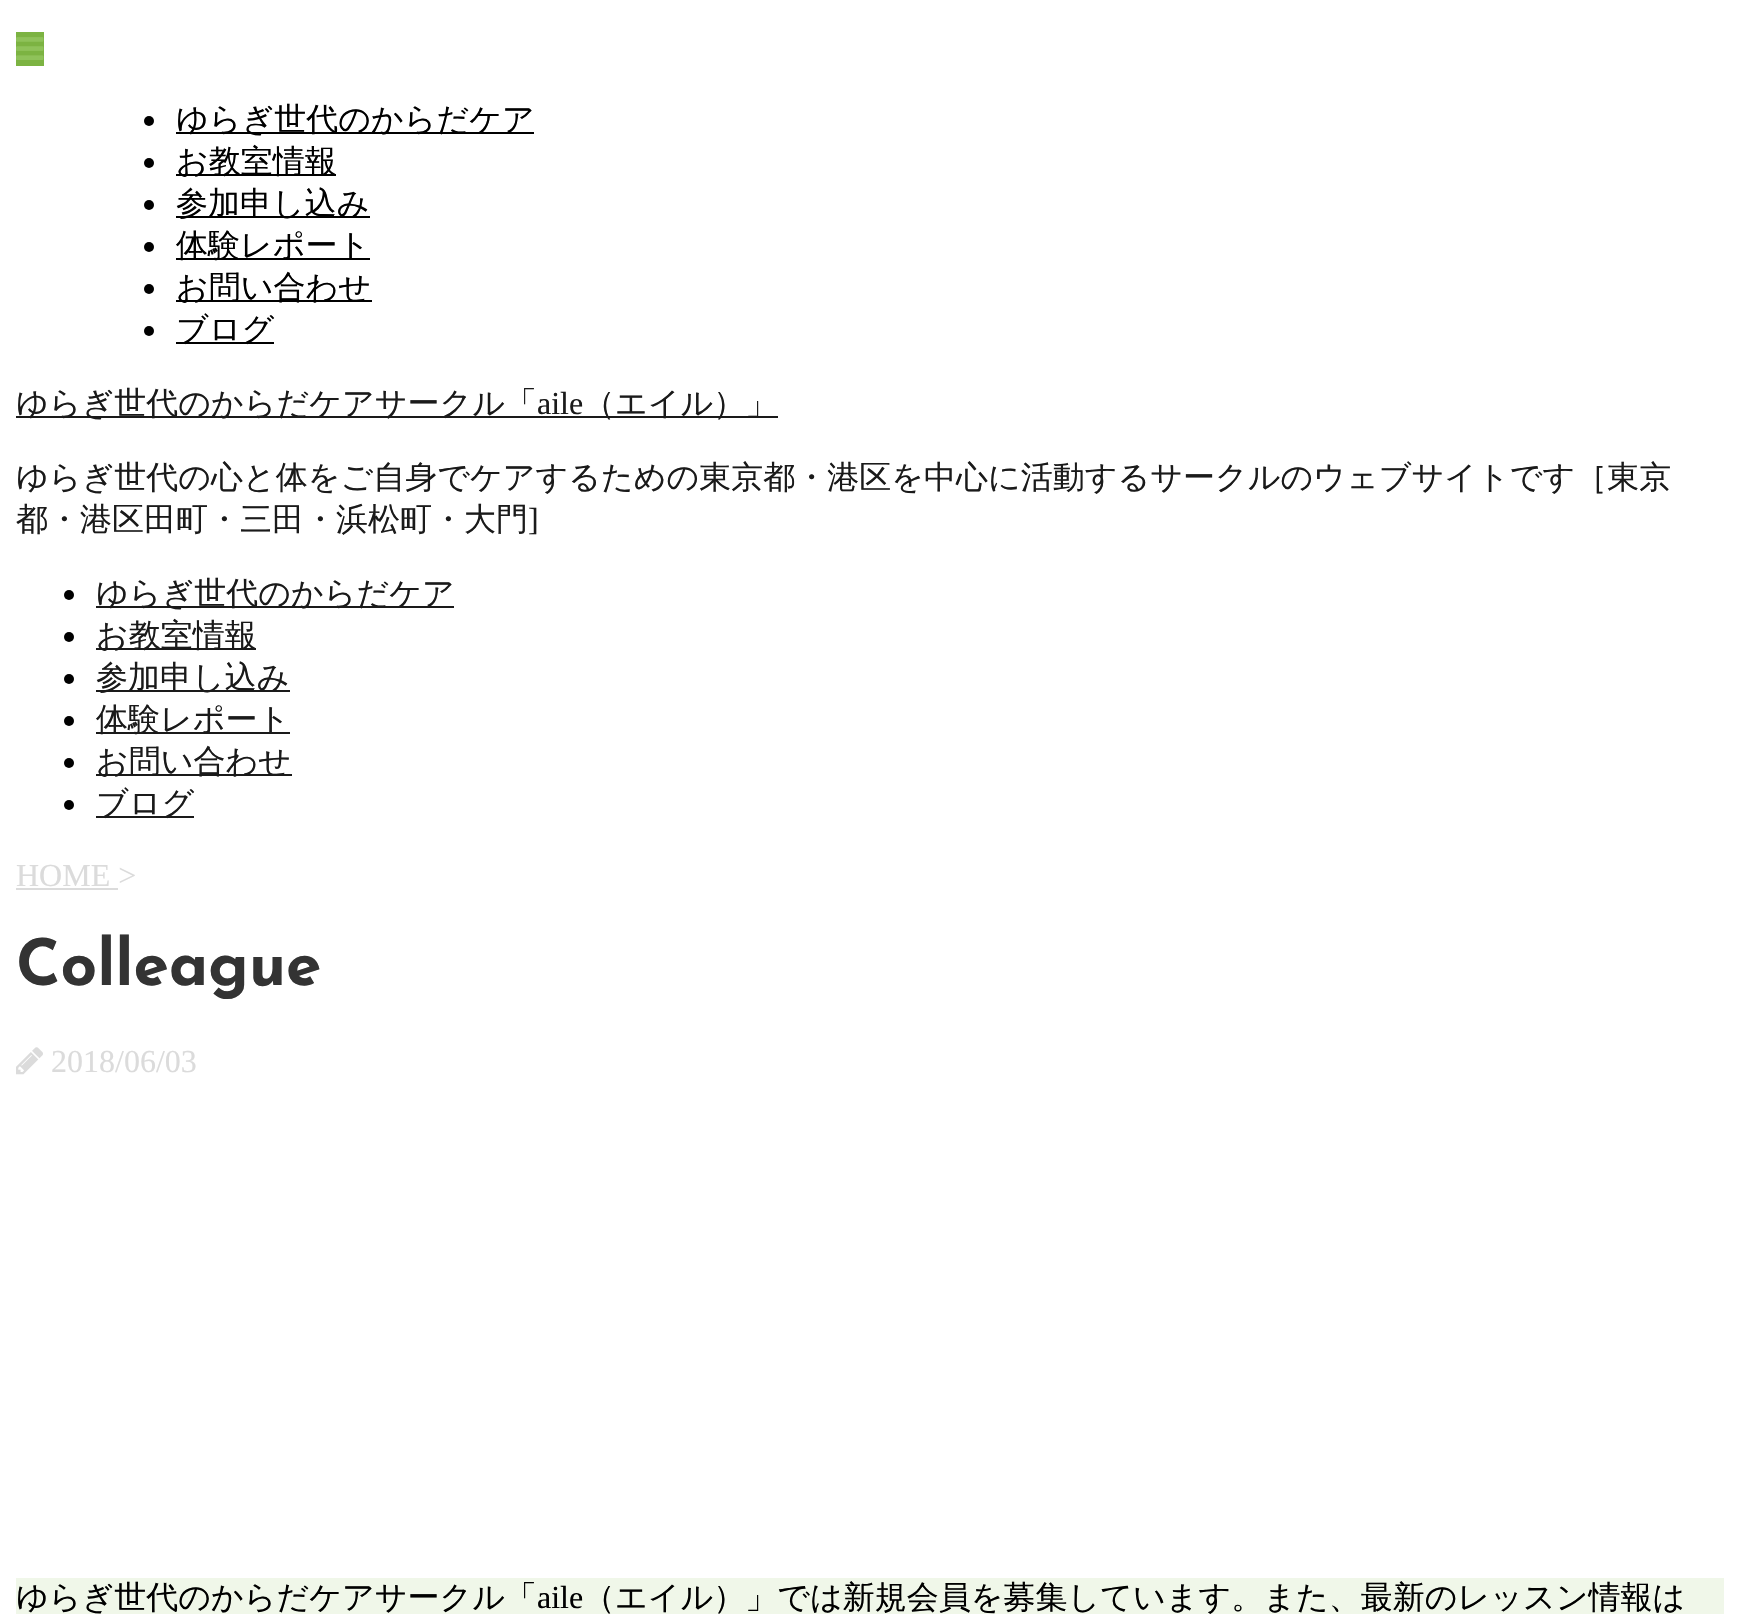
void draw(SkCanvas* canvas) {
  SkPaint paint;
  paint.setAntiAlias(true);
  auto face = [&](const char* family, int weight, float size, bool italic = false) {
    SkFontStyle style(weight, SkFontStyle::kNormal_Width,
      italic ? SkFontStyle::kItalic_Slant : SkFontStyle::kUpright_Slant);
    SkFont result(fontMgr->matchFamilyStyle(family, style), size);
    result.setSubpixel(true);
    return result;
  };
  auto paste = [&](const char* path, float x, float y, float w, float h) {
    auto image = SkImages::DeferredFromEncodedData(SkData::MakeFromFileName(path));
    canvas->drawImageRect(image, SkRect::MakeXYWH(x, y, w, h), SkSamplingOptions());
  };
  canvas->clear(0xffffffff);
  paint.setColor(0xff7cb342);
  canvas->drawRect(SkRect::MakeXYWH(16, 32, 28, 34), paint);
  paste("img/1.png", 16, 37, 28, 23);
  paint.setColor(0xff000000);
  canvas->drawCircle(149, 121, 5, paint);
  canvas->drawRect(SkRect::MakeXYWH(176, 132, 358, 2), paint);
  canvas->drawCircle(149, 163, 5, paint);
  canvas->drawRect(SkRect::MakeXYWH(176, 174, 160, 2), paint);
  canvas->drawCircle(149, 205, 5, paint);
  canvas->drawRect(SkRect::MakeXYWH(176, 216, 194, 2), paint);
  canvas->drawCircle(149, 247, 5, paint);
  canvas->drawRect(SkRect::MakeXYWH(176, 258, 194, 2), paint);
  canvas->drawCircle(149, 289, 5, paint);
  canvas->drawRect(SkRect::MakeXYWH(176, 300, 196, 2), paint);
  canvas->drawCircle(149, 331, 5, paint);
  canvas->drawRect(SkRect::MakeXYWH(176, 342, 98, 2), paint);
  paint.setColor(0xff1a1a1a);
  canvas->drawRect(SkRect::MakeXYWH(16, 416, 762, 2), paint);
  paint.setColor(0xff000000);
  canvas->drawCircle(69, 595, 5, paint);
  paint.setColor(0xff1a1a1a);
  canvas->drawRect(SkRect::MakeXYWH(96, 606, 358, 2), paint);
  paint.setColor(0xff000000);
  canvas->drawCircle(69, 637, 5, paint);
  paint.setColor(0xff1a1a1a);
  canvas->drawRect(SkRect::MakeXYWH(96, 648, 160, 2), paint);
  paint.setColor(0xff000000);
  canvas->drawCircle(69, 679, 5, paint);
  paint.setColor(0xff1a1a1a);
  canvas->drawRect(SkRect::MakeXYWH(96, 690, 194, 2), paint);
  paint.setColor(0xff000000);
  canvas->drawCircle(69, 721, 5, paint);
  paint.setColor(0xff1a1a1a);
  canvas->drawRect(SkRect::MakeXYWH(96, 732, 194, 2), paint);
  paint.setColor(0xff000000);
  canvas->drawCircle(69, 763, 5, paint);
  paint.setColor(0xff1a1a1a);
  canvas->drawRect(SkRect::MakeXYWH(96, 774, 196, 2), paint);
  paint.setColor(0xff000000);
  canvas->drawCircle(69, 805, 5, paint);
  paint.setColor(0xff1a1a1a);
  canvas->drawRect(SkRect::MakeXYWH(96, 816, 98, 2), paint);
  paint.setColor(0xffdbdbdb);
  canvas->drawRect(SkRect::MakeXYWH(16, 888, 102, 2), paint);
  paste("img/2.png", 16, 1047, 27, 28);
  paint.setColor(0xfff0f7e9);
  canvas->drawRect(SkRect::MakeXYWH(16, 1578, 1708, 36), paint);
  auto f0 = face("WenQuanYi Zen Hei", 500, 32);
  paint.setColor(0xff000000);
  {
    const struct { const char* s; float x, y; } items[] = {
      {"ゆらぎ世代のからだケア", 176, 130},
      {"お教室情報", 176, 172},
      {"参加申し込み", 176, 214},
      {"体験レポート", 176, 256},
      {"お問い合わせ", 176, 298},
      {"ブログ", 176, 340},
    };
    for (auto [s, x, y] : items) {
      canvas->drawString(s, x, y, f0, paint);
    }
  }
  paint.setColor(0xff1a1a1a);
  canvas->drawString("ゆらぎ世代のからだケアサークル「", 16, 414, f0, paint);
  auto f1 = face("Liberation Serif", 400, 32);
  canvas->drawString("aile", 537, 414, f1, paint);
  {
    const struct { const char* s; float x, y; } items[] = {
      {"（エイル）」", 583, 414},
      {"ゆらぎ世代の心と体をご自身でケアするための東京都・港区を中心に活動するサークルのウェブサイトです［東京", 16, 488},
      {"都・港区田町・三田・浜松町・大門", 16, 530},
    };
    for (auto [s, x, y] : items) {
      canvas->drawString(s, x, y, f0, paint);
    }
  }
  canvas->drawString("]", 528, 530, f1, paint);
  {
    const struct { const char* s; float x, y; } items[] = {
      {"ゆらぎ世代のからだケア", 96, 604},
      {"お教室情報", 96, 646},
      {"参加申し込み", 96, 688},
      {"体験レポート", 96, 730},
      {"お問い合わせ", 96, 772},
      {"ブログ", 96, 814},
    };
    for (auto [s, x, y] : items) {
      canvas->drawString(s, x, y, f0, paint);
    }
  }
  paint.setColor(0xffdbdbdb);
  canvas->drawString("HOME >", 16, 886, f1, paint);
  auto f2 = face("Josefin Sans", 700, 64);
  paint.setColor(0xff333333);
  canvas->drawString("Colleague", 16, 985, f2, paint);
  paint.setColor(0xffdbdbdb);
  canvas->drawString("2018/06/03", 51, 1072, f1, paint);
  paint.setColor(0xff000000);
  canvas->drawString("ゆらぎ世代のからだケアサークル「", 16, 1608, f0, paint);
  canvas->drawString("aile", 537, 1608, f1, paint);
  canvas->drawString("（エイル）」では新規会員を募集しています。また、最新のレッスン情報は", 583, 1608, f0, paint);
}
